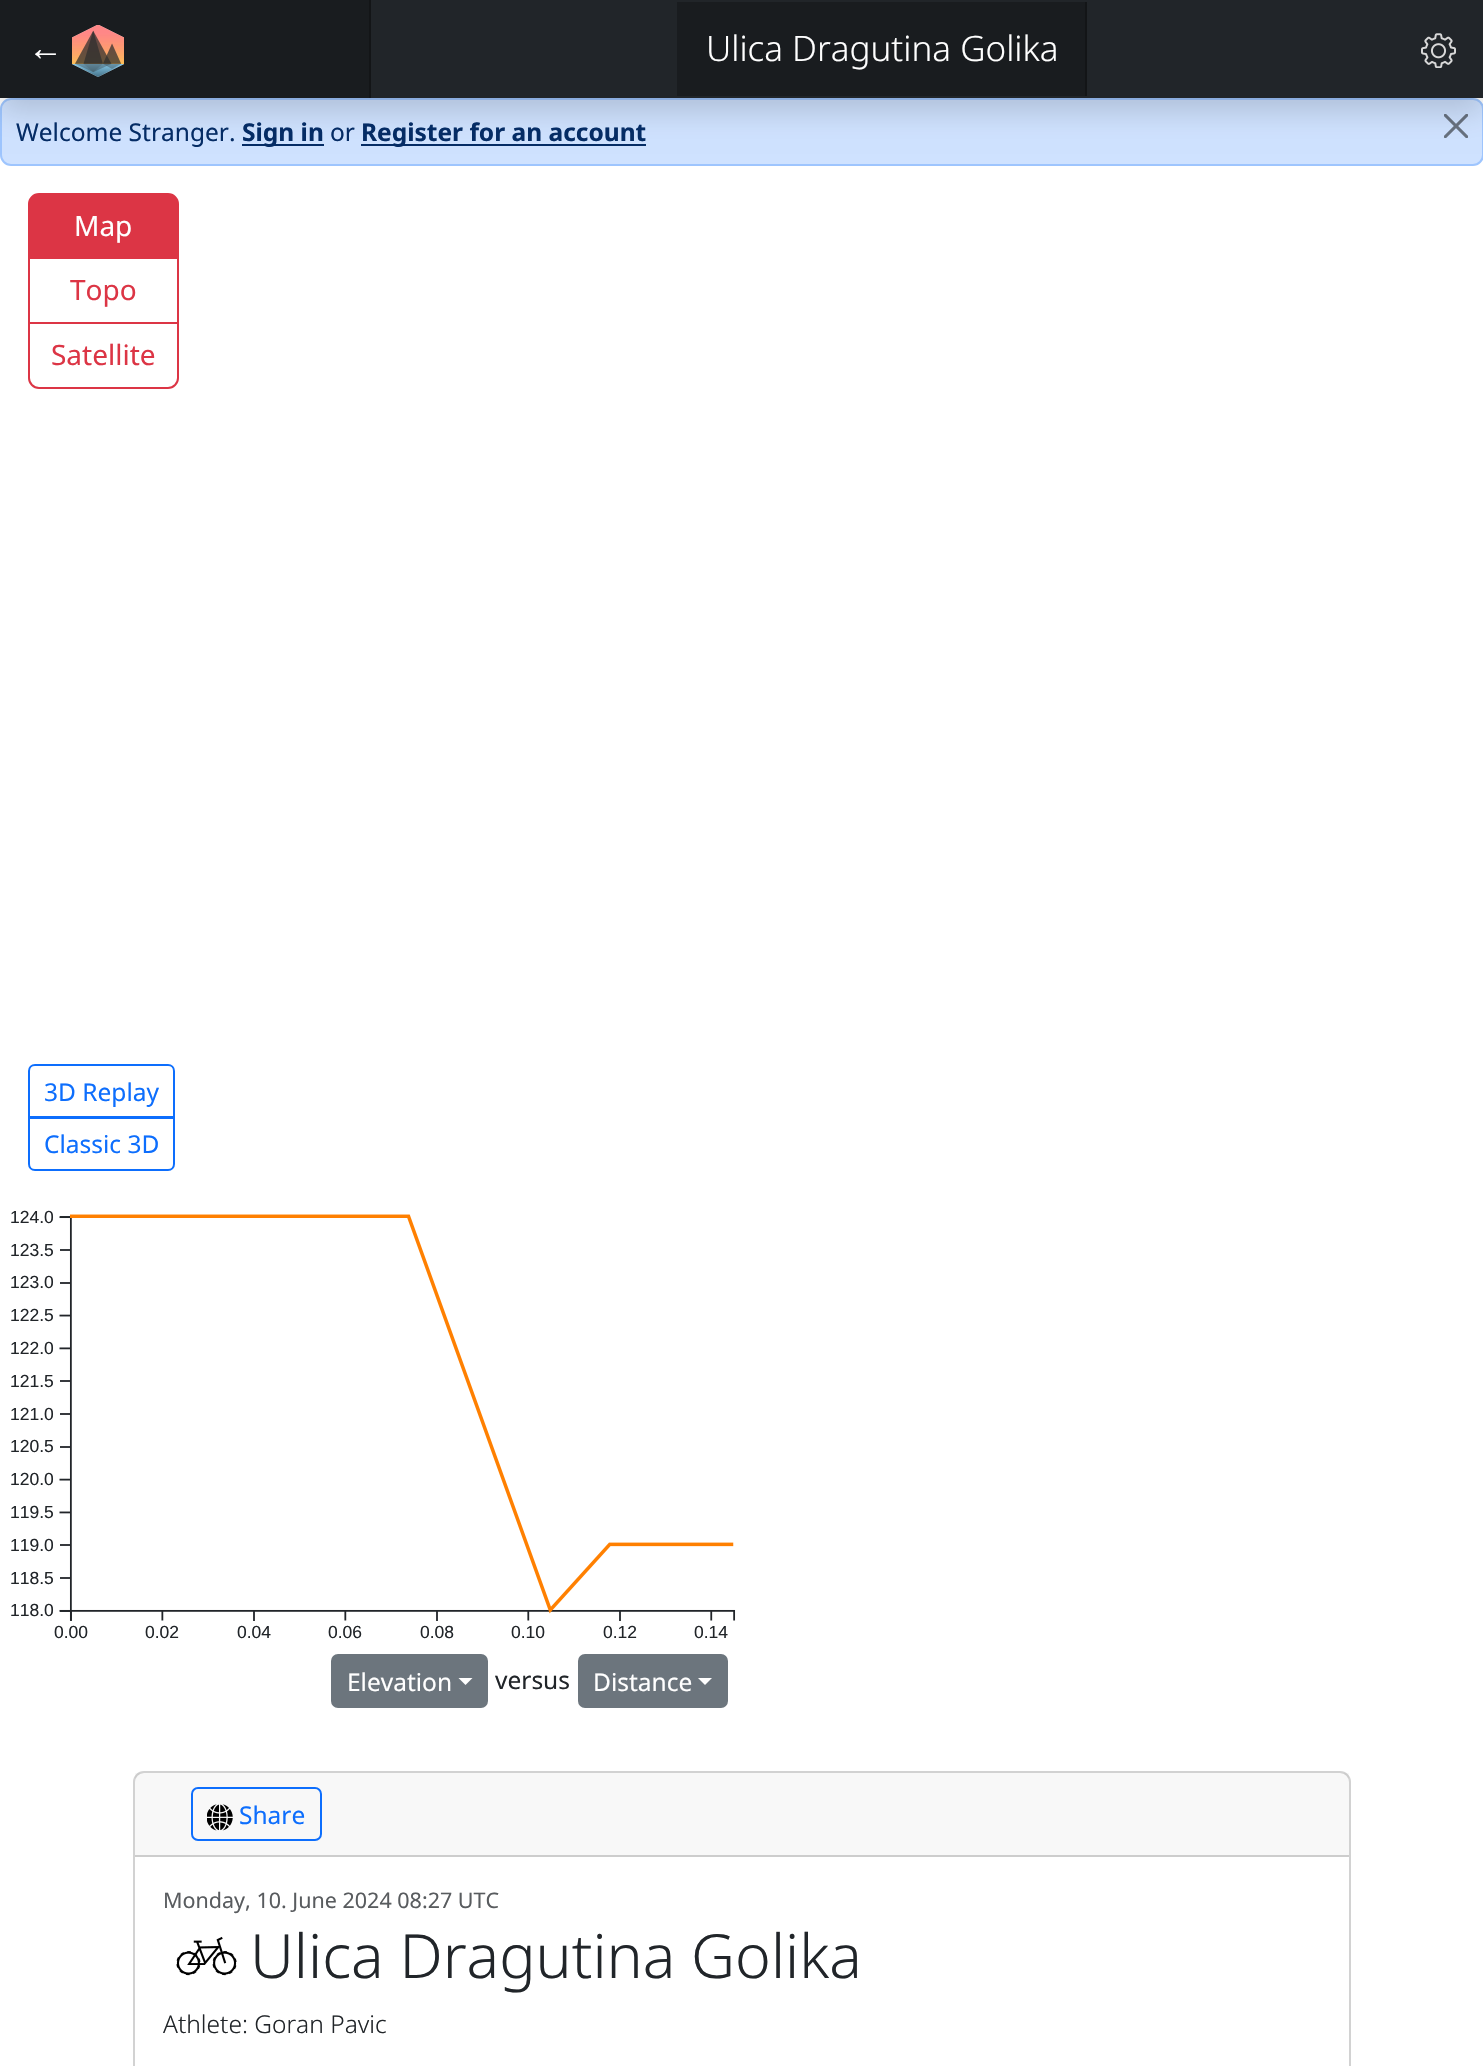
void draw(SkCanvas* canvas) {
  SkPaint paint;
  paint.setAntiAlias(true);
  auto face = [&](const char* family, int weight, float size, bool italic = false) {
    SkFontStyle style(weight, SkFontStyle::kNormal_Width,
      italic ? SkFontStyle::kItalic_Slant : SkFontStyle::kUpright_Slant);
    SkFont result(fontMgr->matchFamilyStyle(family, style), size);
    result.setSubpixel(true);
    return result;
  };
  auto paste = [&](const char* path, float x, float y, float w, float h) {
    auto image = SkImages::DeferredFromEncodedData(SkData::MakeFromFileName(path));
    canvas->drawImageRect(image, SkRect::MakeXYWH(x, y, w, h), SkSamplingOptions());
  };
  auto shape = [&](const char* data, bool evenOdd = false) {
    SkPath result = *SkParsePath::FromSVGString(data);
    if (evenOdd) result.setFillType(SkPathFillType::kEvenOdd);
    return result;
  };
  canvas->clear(0xffffffff);
  paint.setColor(0xffcfe2ff);
  canvas->drawRoundRect(SkRect::MakeXYWH(1, 99, 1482, 66), 10, 10, paint);
  paint.setStroke(true);
  paint.setStrokeWidth(2);
  paint.setColor(0xff9ec5fe);
  canvas->drawRoundRect(SkRect::MakeXYWH(1, 99, 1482, 66), 10, 10, paint);
  paint.setStroke(false);
  paint.setColor(0xff052c65);
  canvas->drawRect(SkRect::MakeXYWH(242, 144, 82, 2), paint);
  canvas->drawRect(SkRect::MakeXYWH(361, 144, 285, 2), paint);
  paste("img/3.png", 1444, 114, 24, 24);
  paint.setColor(0x26000000);
  paint.setMaskFilter(SkMaskFilter::MakeBlur(kNormal_SkBlurStyle, 14));
  canvas->drawRect(SkRect::MakeXYWH(0, 14, 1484, 98), paint);
  paint.setMaskFilter(nullptr);
  {
    const struct { float x, y, w, h; SkColor color; } items[] = {
      {371, 0, 1112, 98, 0xff212529},
      {0, 0, 369, 98, 0xff191c1f},
      {369, 0, 2, 98, 0xff131517},
    };
    for (auto [x, y, w, h, color] : items) {
      paint.setColor(color);
      canvas->drawRect(SkRect::MakeXYWH(x, y, w, h), paint);
    }
  }
  paste("img/1.png", 72, 25, 52, 52);
  paint.setColor(0xff191c1f);
  canvas->drawRect(SkRect::MakeXYWH(677, 2, 408, 94), paint);
  paint.setColor(0xff131517);
  canvas->drawRect(SkRect::MakeXYWH(1085, 2, 2, 94), paint);
  paste("img/2.png", 1421, 33, 35, 35);
  paint.setStroke(true);
  paint.setColor(0xffdc3545);
  canvas->drawRect(SkRect::MakeXYWH(29, 258, 149, 65), paint);
  paint.setStroke(false);
  canvas->drawPath(shape("M39 194H168C173.5 194 178 198.5 178 204V258H29V204C29 198.5 33.5 194 39 194Z"), paint);
  paint.setStroke(true);
  canvas->drawPath(shape("M39 194H168C173.5 194 178 198.5 178 204V258H29V204C29 198.5 33.5 194 39 194Z"), paint);
  canvas->drawPath(shape("M29 323H178V378C178 383.5 173.5 388 168 388H39C33.5 388 29 383.5 29 378Z"), paint);
  paint.setColor(0xff0d6efd);
  canvas->drawPath(shape("M35 1065H168C171.5 1065 174 1067.5 174 1071V1117H29V1071C29 1067.5 31.5 1065 35 1065Z"), paint);
  canvas->drawPath(shape("M29 1118H174V1164C174 1167.5 171.5 1170 168 1170H35C31.5 1170 29 1167.5 29 1164Z"), paint);
  paste("img/4.png", 59, 1214, 677, 407);
  paint.setStroke(false);
  paint.setColor(0xff6c757d);
  canvas->drawRoundRect(SkRect::MakeXYWH(332, 1655, 155, 52), 6, 6, paint);
  paint.setStroke(true);
  canvas->drawRoundRect(SkRect::MakeXYWH(332, 1655, 155, 52), 6, 6, paint);
  paint.setStroke(false);
  paint.setColor(0xffffffff);
  canvas->drawPath(shape("M458.5 1678H472.5L465.5 1685Z"), paint);
  paint.setColor(0xff6c757d);
  canvas->drawRoundRect(SkRect::MakeXYWH(579, 1655, 148, 52), 6, 6, paint);
  paint.setStroke(true);
  canvas->drawRoundRect(SkRect::MakeXYWH(579, 1655, 148, 52), 6, 6, paint);
  paint.setStroke(false);
  paint.setColor(0xffffffff);
  canvas->drawPath(shape("M698 1678H712L705 1685Z"), paint);
  paint.setStroke(true);
  paint.setColor(0xffd2d2d2);
  canvas->drawRoundRect(SkRect::MakeXYWH(134, 1772, 1216, 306), 10, 10, paint);
  paint.setStroke(false);
  paint.setColor(0x08212529);
  canvas->drawRect(SkRect::MakeXYWH(135, 1773, 1214, 82), paint);
  paint.setColor(0xffcdcdcd);
  canvas->drawRect(SkRect::MakeXYWH(135, 1855, 1214, 2), paint);
  paint.setStroke(true);
  paint.setColor(0xff0d6efd);
  canvas->drawRoundRect(SkRect::MakeXYWH(192, 1788, 129, 52), 6, 6, paint);
  paste("img/5.png", 207, 1804, 26, 27);
  paste("img/6.png", 176, 1936, 61, 40);
  auto f0 = face("Liberation Sans", 400, 35);
  paint.setStroke(false);
  paint.setColor(0xffffffff);
  canvas->drawString("←", 28, 60, f0, paint);
  auto f1 = face("Noto Sans", 300, 35);
  canvas->drawString("Ulica Dragutina Golika", 706, 61, f1, paint);
  auto f2 = face("Noto Sans", 400, 24.5f);
  paint.setColor(0xff052c65);
  canvas->drawString("Welcome Stranger.", 16, 141, f2, paint);
  auto f3 = face("Noto Sans", 700, 24.5f);
  canvas->drawString("Sign in", 242, 141, f3, paint);
  canvas->drawString("or", 330, 141, f2, paint);
  canvas->drawString("Register for an account", 361, 141, f3, paint);
  auto f4 = face("Noto Sans", 400, 28);
  paint.setColor(0xffffffff);
  canvas->drawString("Map", 74, 236, f4, paint);
  paint.setColor(0xffdc3545);
  canvas->drawString("Topo", 70, 300, f4, paint);
  canvas->drawString("Satellite", 51, 365, f4, paint);
  paint.setColor(0xff0d6efd);
  canvas->drawString("3D Replay", 44, 1101, f2, paint);
  canvas->drawString("Classic 3D", 44, 1153, f2, paint);
  auto f5 = face("Liberation Sans", 400, 17.5f);
  paint.setColor(0xff212529);
  {
    const struct { const char* s; float x, y; } items[] = {
      {"124.0", 10, 1223},
      {"123.5", 10, 1256},
      {"123.0", 10, 1288},
      {"122.5", 10, 1321},
      {"122.0", 10, 1354},
      {"121.5", 10, 1387},
      {"121.0", 10, 1420},
      {"120.5", 10, 1452},
      {"120.0", 10, 1485},
      {"119.5", 10, 1518},
      {"119.0", 10, 1551},
      {"118.5", 10, 1584},
      {"118.0", 10, 1616},
      {"0.00", 54, 1638},
      {"0.02", 145, 1638},
      {"0.04", 237, 1638},
      {"0.06", 328, 1638},
      {"0.08", 420, 1638},
      {"0.10", 511, 1638},
      {"0.12", 603, 1638},
      {"0.14", 694, 1638},
    };
    for (auto [s, x, y] : items) {
      canvas->drawString(s, x, y, f5, paint);
    }
  }
  paint.setColor(0xffffffff);
  canvas->drawString("Elevation", 347, 1691, f2, paint);
  paint.setColor(0xff212529);
  canvas->drawString("versus", 495, 1689, f2, paint);
  paint.setColor(0xffffffff);
  canvas->drawString("Distance", 593, 1691, f2, paint);
  paint.setColor(0xff0d6efd);
  canvas->drawString("Share", 239, 1824, f2, paint);
  auto f6 = face("Noto Sans", 400, 21.5f);
  paint.setColor(0xff595c5f);
  canvas->drawString("Monday, 10. June 2024 08:27 UTC", 163, 1908, f6, paint);
  auto f7 = face("Noto Sans", 300, 60.75f);
  paint.setColor(0xff212529);
  canvas->drawString("Ulica Dragutina Golika", 250, 1978, f7, paint);
  auto f8 = face("Noto Sans", 300, 24.5f);
  canvas->drawString("Athlete: Goran Pavic", 163, 2033, f8, paint);
}
